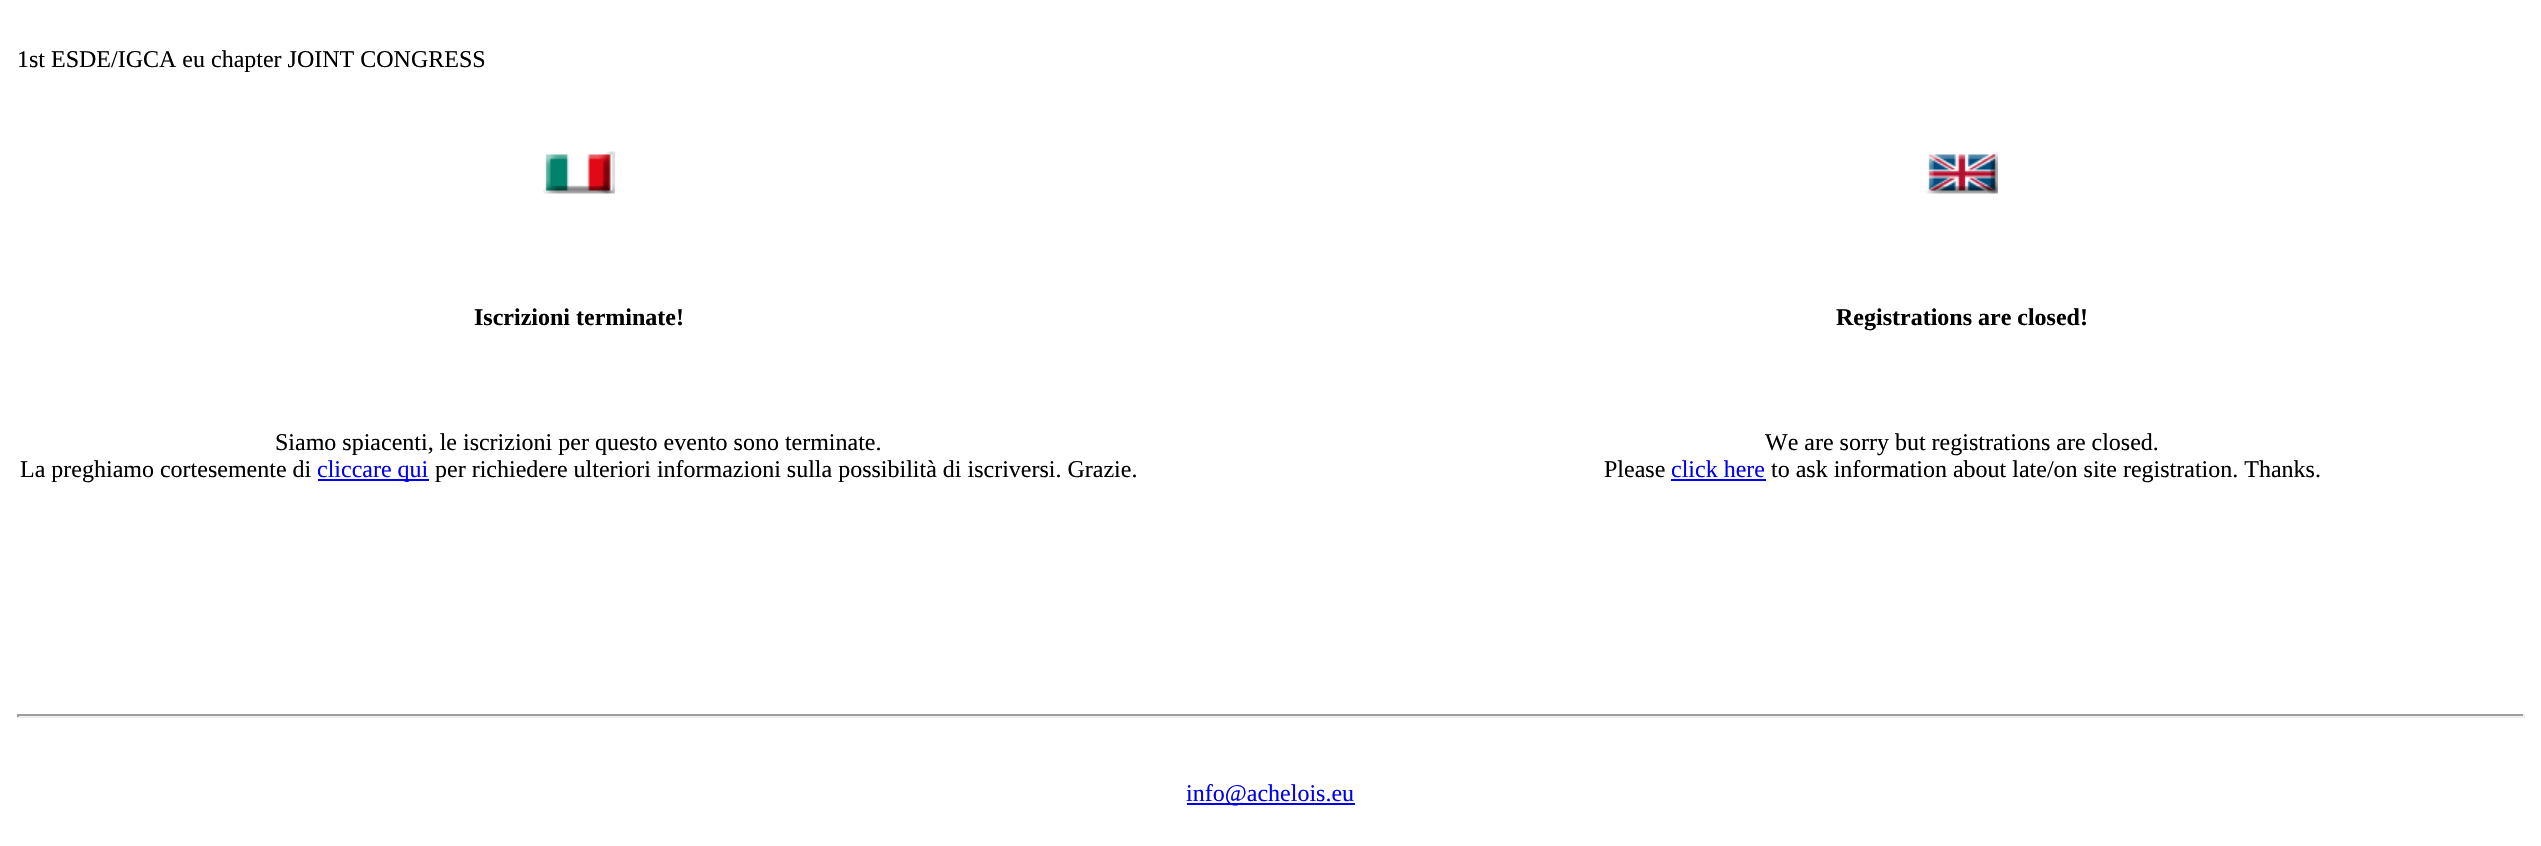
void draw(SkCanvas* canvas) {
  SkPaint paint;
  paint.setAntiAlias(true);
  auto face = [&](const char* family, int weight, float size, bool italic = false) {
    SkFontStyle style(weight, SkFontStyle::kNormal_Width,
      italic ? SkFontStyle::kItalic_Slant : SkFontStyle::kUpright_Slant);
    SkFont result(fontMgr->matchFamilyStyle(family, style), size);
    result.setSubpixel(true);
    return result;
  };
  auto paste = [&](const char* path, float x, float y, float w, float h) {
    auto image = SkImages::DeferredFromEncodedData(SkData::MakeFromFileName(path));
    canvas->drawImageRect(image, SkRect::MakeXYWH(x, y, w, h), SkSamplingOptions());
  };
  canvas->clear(0xffffffff);
  paste("img/1.png", 543, 151, 72, 43);
  paste("img/2.png", 1926, 151, 72, 43);
  {
    const struct { float x, y, w, h; SkColor color; } items[] = {
      {318, 479, 111, 2, 0xff0000ee},
      {1671, 479, 95, 2, 0xff0000ee},
      {17, 714, 2508, 2, 0xff9f9f9f},
      {2523, 714, 2, 3, 0xffeeeeee},
      {17, 716, 2508, 2, 0xffeeeeee},
      {17, 714, 2, 3, 0xff9f9f9f},
      {1187, 803, 168, 2, 0xff0000ee},
    };
    for (auto [x, y, w, h, color] : items) {
      paint.setColor(color);
      canvas->drawRect(SkRect::MakeXYWH(x, y, w, h), paint);
    }
  }
  auto f0 = face("Liberation Serif", 400, 24);
  paint.setColor(0xff000000);
  canvas->drawString("1st ESDE/IGCA eu chapter JOINT CONGRESS", 17, 67, f0, paint);
  auto f1 = face("Liberation Serif", 700, 24);
  canvas->drawString("Iscrizioni terminate!", 474, 325, f1, paint);
  canvas->drawString("Registrations are closed!", 1836, 325, f1, paint);
  canvas->drawString("Siamo spiacenti, le iscrizioni per questo evento sono terminate.", 275, 450, f0, paint);
  canvas->drawString("La preghiamo cortesemente di", 20, 477, f0, paint);
  paint.setColor(0xff0000ee);
  canvas->drawString("cliccare qui", 317, 477, f0, paint);
  paint.setColor(0xff000000);
  {
    const struct { const char* s; float x, y; } items[] = {
      {"per richiedere ulteriori informazioni sulla possibilità di iscriversi. Grazie.", 435, 477},
      {"We are sorry but registrations are closed.", 1765, 450},
      {"Please", 1604, 477},
    };
    for (auto [s, x, y] : items) {
      canvas->drawString(s, x, y, f0, paint);
    }
  }
  paint.setColor(0xff0000ee);
  canvas->drawString("click here", 1671, 477, f0, paint);
  paint.setColor(0xff000000);
  canvas->drawString("to ask information about late/on site registration. Thanks.", 1771, 477, f0, paint);
  paint.setColor(0xff0000ee);
  canvas->drawString("info@achelois.eu", 1186, 801, f0, paint);
}
